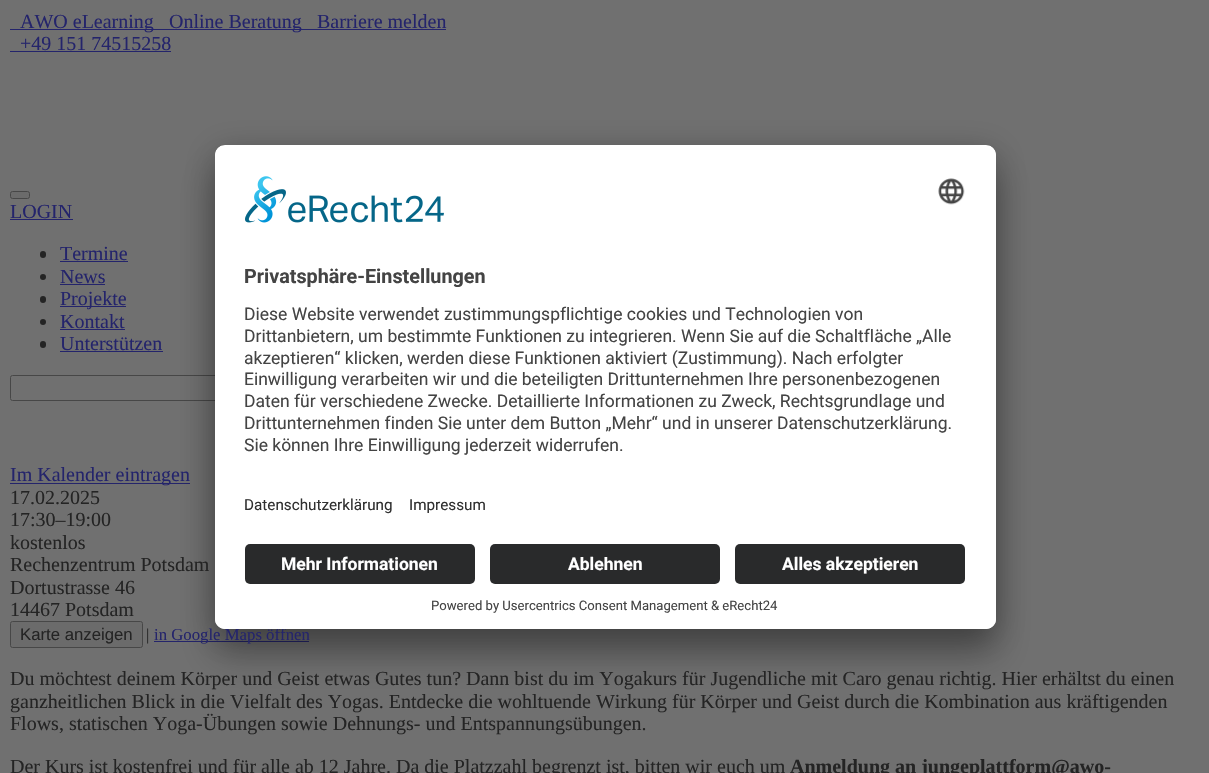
void draw(SkCanvas* canvas) {
  SkPaint paint;
  paint.setAntiAlias(true);
  auto face = [&](const char* family, int weight, float size, bool italic = false) {
    SkFontStyle style(weight, SkFontStyle::kNormal_Width,
      italic ? SkFontStyle::kItalic_Slant : SkFontStyle::kUpright_Slant);
    SkFont result(fontMgr->matchFamilyStyle(family, style), size);
    result.setSubpixel(true);
    return result;
  };
  auto paste = [&](const char* path, float x, float y, float w, float h) {
    auto image = SkImages::DeferredFromEncodedData(SkData::MakeFromFileName(path));
    canvas->drawImageRect(image, SkRect::MakeXYWH(x, y, w, h), SkSamplingOptions());
  };
  auto shape = [&](const char* data, bool evenOdd = false) {
    SkPath result = *SkParsePath::FromSVGString(data);
    if (evenOdd) result.setFillType(SkPathFillType::kEvenOdd);
    return result;
  };
  canvas->clear(0xff707070);
  paint.setColor(0xff24246b);
  canvas->drawRect(SkRect::MakeXYWH(10, 29, 436, 1), paint);
  canvas->drawRect(SkRect::MakeXYWH(10, 51, 161, 1), paint);
  paint.setColor(0xff6b6b6b);
  canvas->drawRoundRect(SkRect::MakeXYWH(10.5f, 191.5f, 19, 7), 2, 2, paint);
  paint.setStroke(true);
  paint.setStrokeWidth(1);
  paint.setColor(0xff474747);
  canvas->drawRoundRect(SkRect::MakeXYWH(10.5f, 191.5f, 19, 7), 2, 2, paint);
  paint.setStroke(false);
  paint.setColor(0xff24246b);
  canvas->drawRect(SkRect::MakeXYWH(10, 219, 63, 1), paint);
  paint.setColor(0xff242424);
  canvas->drawRoundRect(SkRect::MakeXYWH(40, 251, 6, 7), 3, 3, paint);
  paint.setColor(0xff24246b);
  canvas->drawRect(SkRect::MakeXYWH(60, 261, 68, 1), paint);
  paint.setColor(0xff242424);
  canvas->drawCircle(43, 277, 3, paint);
  paint.setColor(0xff24246b);
  canvas->drawRect(SkRect::MakeXYWH(60, 284, 45, 1), paint);
  paint.setColor(0xff242424);
  canvas->drawRoundRect(SkRect::MakeXYWH(40, 296, 6, 7), 3, 3, paint);
  paint.setColor(0xff24246b);
  canvas->drawRect(SkRect::MakeXYWH(60, 306, 66, 1), paint);
  paint.setColor(0xff242424);
  canvas->drawCircle(43, 322, 3, paint);
  paint.setColor(0xff24246b);
  canvas->drawRect(SkRect::MakeXYWH(60, 329, 65, 1), paint);
  paint.setColor(0xff242424);
  canvas->drawRoundRect(SkRect::MakeXYWH(40, 341, 6, 7), 3, 3, paint);
  paint.setColor(0xff24246b);
  canvas->drawRect(SkRect::MakeXYWH(60, 351, 103, 1), paint);
  paint.setStroke(true);
  paint.setColor(0xff474747);
  canvas->drawRoundRect(SkRect::MakeXYWH(10.5f, 375.5f, 230, 25), 2, 2, paint);
  paint.setStroke(false);
  paint.setColor(0xff24246b);
  canvas->drawRect(SkRect::MakeXYWH(10, 483, 180, 1), paint);
  paint.setColor(0xff6b6b6b);
  canvas->drawRoundRect(SkRect::MakeXYWH(10.5f, 621.5f, 132, 26), 2, 2, paint);
  paint.setStroke(true);
  paint.setColor(0xff474747);
  canvas->drawRoundRect(SkRect::MakeXYWH(10.5f, 621.5f, 132, 26), 2, 2, paint);
  paint.setStroke(false);
  paint.setColor(0xff24246b);
  canvas->drawRect(SkRect::MakeXYWH(154, 641, 155, 1), paint);
  paint.setColor(0x4d000000);
  paint.setMaskFilter(SkMaskFilter::MakeBlur(kNormal_SkBlurStyle, 17.5f));
  canvas->drawRoundRect(SkRect::MakeXYWH(215, 170, 781, 484), 10, 10, paint);
  paint.setMaskFilter(nullptr);
  paint.setColor(0x38000000);
  paint.setMaskFilter(SkMaskFilter::MakeBlur(kNormal_SkBlurStyle, 16));
  canvas->drawRoundRect(SkRect::MakeXYWH(215, 151, 781, 484), 10, 10, paint);
  paint.setMaskFilter(nullptr);
  auto f0 = face("Liberation Serif", 400, 20);
  paint.setColor(0xff24246b);
  {
    const struct { const char* s; float x, y; } items[] = {
      {"AWO eLearning", 20, 28},
      {"Online Beratung", 169, 28},
      {"Barriere melden", 317, 28},
      {"+49 151 74515258", 20, 50},
      {"LOGIN", 10, 218},
      {"Termine", 60, 260},
      {"News", 60, 283},
      {"Projekte", 60, 305},
      {"Kontakt", 60, 328},
      {"Unterstützen", 60, 350},
      {"Im Kalender eintragen", 10, 481},
    };
    for (auto [s, x, y] : items) {
      canvas->drawString(s, x, y, f0, paint);
    }
  }
  paint.setColor(0xff242424);
  {
    const struct { const char* s; float x, y; } items[] = {
      {"17.02.2025", 10, 504},
      {"17:30–19:00", 10, 526},
      {"kostenlos", 10, 549},
      {"Rechenzentrum Potsdam", 10, 571},
      {"Dortustrasse 46", 10, 594},
      {"14467 Potsdam", 10, 616},
    };
    for (auto [s, x, y] : items) {
      canvas->drawString(s, x, y, f0, paint);
    }
  }
  auto f1 = face("Liberation Sans", 400, 16.75f);
  canvas->drawString("Karte anzeigen", 20, 640, f1, paint);
  auto f2 = face("Liberation Serif", 400, 16.75f);
  canvas->drawString("|", 146, 640, f2, paint);
  paint.setColor(0xff24246b);
  canvas->drawString("in Google Maps öffnen", 154, 640, f2, paint);
  paint.setColor(0xff242424);
  {
    const struct { const char* s; float x, y; } items[] = {
      {"Du möchtest deinem Körper und Geist etwas Gutes tun? Dann bist du im Yogakurs für Jugendliche mit Caro genau richtig. Hier erhältst du einen", 10, 685},
      {"ganzheitlichen Blick in die Vielfalt des Yogas. Entdecke die wohltuende Wirkung für Körper und Geist durch die Kombination aus kräftigenden", 10, 708},
      {"Flows, statischen Yoga-Übungen sowie Dehnungs- und Entspannungsübungen.", 10, 730},
      {"Der Kurs ist kostenfrei und für alle ab 12 Jahre. Da die Platzzahl begrenzt ist, bitten wir euch um", 10, 773},
    };
    for (auto [s, x, y] : items) {
      canvas->drawString(s, x, y, f0, paint);
    }
  }
  auto f3 = face("Liberation Serif", 700, 20);
  canvas->drawString("Anmeldung an jungeplattform@awo-", 790, 773, f3, paint);
  paint.setColor(0xffffffff);
  canvas->drawRoundRect(SkRect::MakeXYWH(215, 145, 781, 484), 10, 10, paint);
  canvas->save();
  canvas->clipPath(shape("M225 145H986C991.5 145 996 149.5 996 155V619C996 624.5 991.5 629 986 629H225C219.5 629 215 624.5 215 619V155C215 149.5 219.5 145 225 145Z"), true);
  canvas->clipPath(shape("M225 145H986C991.5 145 996 149.5 996 155V534H215V155C215 149.5 219.5 145 225 145Z"), true);
  canvas->drawRect(SkRect::MakeXYWH(215, 146, 781, 388), paint);
  canvas->restore();
  paste("img/1.png", 245, 176, 199, 47);
  paste("img/2.png", 938, 178, 27, 27);
  auto f4 = face("Roboto", 700, 19.75f);
  paint.setColor(0xff444444);
  canvas->drawString("Privatsphäre-Einstellungen", 244, 283, f4, paint);
  auto f5 = face("Roboto", 400, 17.5f);
  {
    const struct { const char* s; float x, y; } items[] = {
      {"Diese Website verwendet zustimmungspflichtige cookies und Technologien von", 244, 320},
      {"Drittanbietern, um bestimmte Funktionen zu integrieren. Wenn Sie auf die Schaltfläche „Alle", 244, 342},
      {"akzeptieren“ klicken, werden diese Funktionen aktiviert (Zustimmung). Nach erfolgter", 244, 364},
      {"Einwilligung verarbeiten wir und die beteiligten Drittunternehmen Ihre personenbezogenen", 244, 385},
      {"Daten für verschiedene Zwecke. Detaillierte Informationen zu Zweck, Rechtsgrundlage und", 244, 407},
      {"Drittunternehmen finden Sie unter dem Button „Mehr“ und in unserer Datenschutzerklärung.", 244, 429},
      {"Sie können Ihre Einwilligung jederzeit widerrufen.", 244, 451},
    };
    for (auto [s, x, y] : items) {
      canvas->drawString(s, x, y, f5, paint);
    }
  }
  auto f6 = face("Roboto", 400, 15.25f);
  paint.setColor(0xff303030);
  canvas->drawString("Datenschutzerklärung", 244, 510, f6, paint);
  canvas->drawString("Impressum", 409, 510, f6, paint);
  paint.setColor(0xffffffff);
  canvas->drawPath(shape("M215 534H996V619C996 624.5 991.5 629 986 629H225C219.5 629 215 624.5 215 619Z"), paint);
  paint.setColor(0xff292a2b);
  canvas->drawRoundRect(SkRect::MakeXYWH(245, 544, 230, 40), 5, 5, paint);
  auto f7 = face("Roboto", 700, 17.5f);
  paint.setColor(0xffffffff);
  canvas->drawString("Mehr Informationen", 281, 570, f7, paint);
  paint.setColor(0xff292a2b);
  canvas->drawRoundRect(SkRect::MakeXYWH(490, 544, 230, 40), 5, 5, paint);
  paint.setColor(0xffffffff);
  canvas->drawString("Ablehnen", 568, 570, f7, paint);
  paint.setColor(0xff292a2b);
  canvas->drawRoundRect(SkRect::MakeXYWH(735, 544, 230, 40), 5, 5, paint);
  paint.setColor(0xffffffff);
  canvas->drawString("Alles akzeptieren", 782, 570, f7, paint);
  auto f8 = face("Roboto", 400, 13.1f);
  paint.setColor(0xff444444);
  canvas->drawString("Powered by Usercentrics Consent Management & eRecht24", 431, 610, f8, paint);
}
